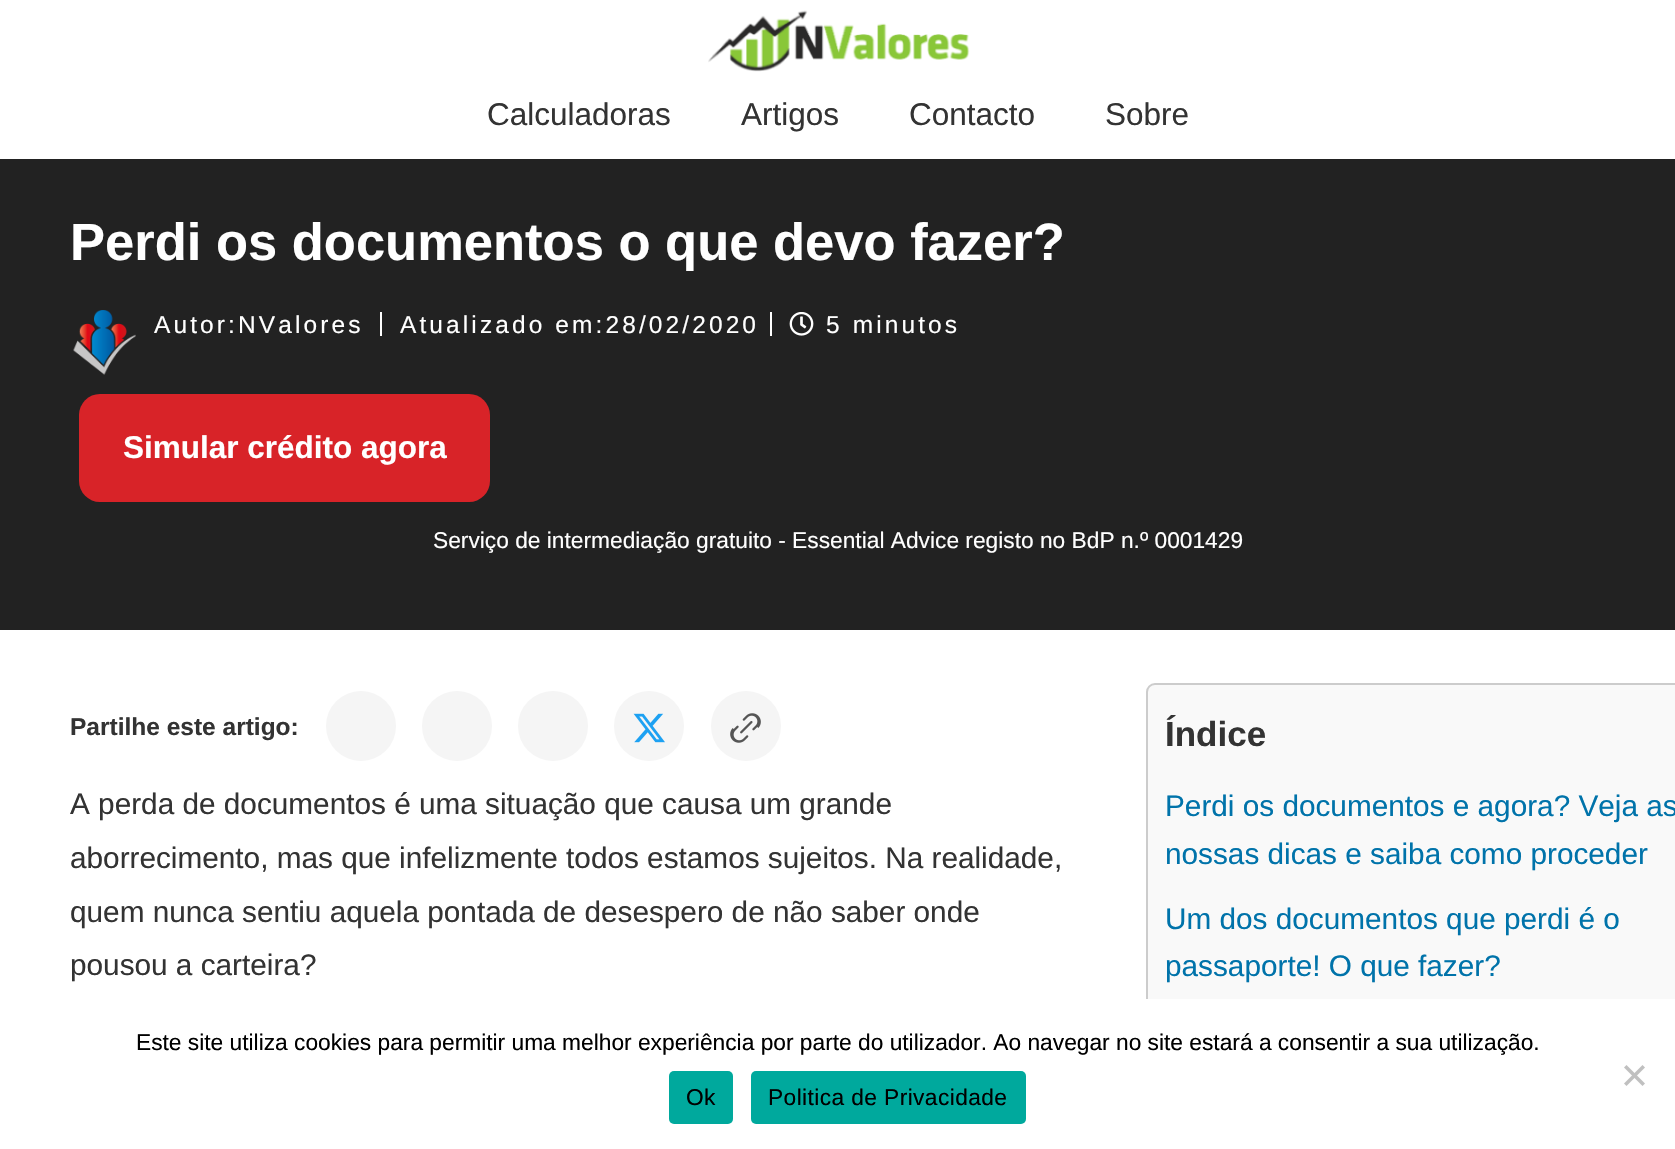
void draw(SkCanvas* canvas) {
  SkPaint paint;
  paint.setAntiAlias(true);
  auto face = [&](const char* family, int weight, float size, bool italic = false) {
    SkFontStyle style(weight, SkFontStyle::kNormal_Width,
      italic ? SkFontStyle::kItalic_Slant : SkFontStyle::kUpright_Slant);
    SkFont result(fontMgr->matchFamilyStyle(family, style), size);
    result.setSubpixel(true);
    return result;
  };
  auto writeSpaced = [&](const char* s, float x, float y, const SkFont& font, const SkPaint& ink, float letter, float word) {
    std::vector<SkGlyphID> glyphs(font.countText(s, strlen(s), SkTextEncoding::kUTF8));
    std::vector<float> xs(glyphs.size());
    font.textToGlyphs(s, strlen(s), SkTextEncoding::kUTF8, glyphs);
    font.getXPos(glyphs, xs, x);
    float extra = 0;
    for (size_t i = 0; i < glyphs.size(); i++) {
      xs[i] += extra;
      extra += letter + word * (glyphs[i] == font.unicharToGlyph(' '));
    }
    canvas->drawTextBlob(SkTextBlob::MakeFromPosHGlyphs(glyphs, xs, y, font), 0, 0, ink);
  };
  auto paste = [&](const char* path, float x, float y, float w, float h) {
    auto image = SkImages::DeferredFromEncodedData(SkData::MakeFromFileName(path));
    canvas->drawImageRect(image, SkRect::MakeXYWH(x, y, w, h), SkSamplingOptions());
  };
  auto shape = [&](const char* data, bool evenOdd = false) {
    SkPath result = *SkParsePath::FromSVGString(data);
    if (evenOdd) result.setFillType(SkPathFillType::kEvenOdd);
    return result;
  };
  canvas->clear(0xffffffff);
  paste("img/1.png", 708, 10, 262, 62);
  paint.setColor(0xff222222);
  canvas->drawRect(SkRect::MakeXYWH(0, 159, 1675, 471), paint);
  paste("img/2.png", 73, 310, 63, 65);
  paint.setColor(0xffffffff);
  canvas->drawRect(SkRect::MakeXYWH(380, 312, 2, 24), paint);
  canvas->drawRect(SkRect::MakeXYWH(770, 312, 2, 24), paint);
  paste("img/3.png", 789, 312, 25, 24);
  paint.setColor(0xffd82328);
  canvas->drawRoundRect(SkRect::MakeXYWH(79, 394, 411, 108), 21, 21, paint);
  paint.setColor(0xfff5f5f5);
  canvas->drawCircle(361, 726, 35, paint);
  canvas->drawCircle(457, 726, 35, paint);
  canvas->drawCircle(553, 726, 35, paint);
  canvas->drawCircle(649, 726, 35, paint);
  paste("img/4.png", 633, 713, 32, 30);
  canvas->drawCircle(746, 726, 35, paint);
  paste("img/5.png", 730, 713, 31, 30);
  paint.setColor(0xfff9f9f9);
  canvas->drawRoundRect(SkRect::MakeXYWH(1147, 684, 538, 407), 8, 8, paint);
  paint.setStroke(true);
  paint.setStrokeWidth(2);
  paint.setColor(0xffcccccc);
  canvas->drawRoundRect(SkRect::MakeXYWH(1147, 684, 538, 407), 8, 8, paint);
  paint.setStroke(false);
  paint.setColor(0xffffffff);
  canvas->drawRect(SkRect::MakeXYWH(1146, 999, 529, 93), paint);
  paint.setColor(0xffc0c0c0);
  canvas->drawPath(shape("M1642.5 1065L1645 1067.5L1626.5 1086L1624 1083.5Z"), paint);
  canvas->drawPath(shape("M1624 1067.5L1626.5 1065L1645 1083.5L1642.5 1086Z"), paint);
  paint.setColor(0xff00a99d);
  canvas->drawRoundRect(SkRect::MakeXYWH(669, 1071, 64, 53), 5, 5, paint);
  canvas->drawRoundRect(SkRect::MakeXYWH(751, 1071, 275, 53), 5, 5, paint);
  auto f0 = face("Liberation Sans", 400, 31.5f);
  paint.setColor(0xff333333);
  {
    const struct { const char* s; float x, y; } items[] = {
      {"Calculadoras", 487, 125},
      {"Artigos", 741, 125},
      {"Contacto", 909, 125},
      {"Sobre", 1105, 125},
    };
    for (auto [s, x, y] : items) {
      canvas->drawString(s, x, y, f0, paint);
    }
  }
  auto f1 = face("Liberation Sans", 700, 52.5f);
  paint.setColor(0xffffffff);
  canvas->drawString("Perdi os documentos o que devo fazer?", 70, 260, f1, paint);
  auto f2 = face("Liberation Sans", 400, 24.5f);
  {
    const struct { const char* s; float x, y; } items[] = {
      {"Autor:NValores", 154, 333},
      {"Atualizado em:28/02/2020", 400, 333},
      {"5 minutos", 826, 333},
    };
    for (auto [s, x, y] : items) {
      writeSpaced(s, x, y, f2, paint, 3.1f, 0);
    }
  }
  auto f3 = face("Liberation Sans", 700, 31.5f);
  canvas->drawString("Simular crédito agora", 123, 458, f3, paint);
  auto f4 = face("Liberation Sans", 400, 22.75f);
  canvas->drawString("Serviço de intermediação gratuito - Essential Advice registo no BdP n.º 0001429", 433, 548, f4, paint);
  auto f5 = face("Liberation Sans", 700, 24.5f);
  paint.setColor(0xff333333);
  canvas->drawString("Partilhe este artigo:", 70, 735, f5, paint);
  auto f6 = face("Liberation Sans", 400, 29.75f);
  {
    const struct { const char* s; float x, y; } items[] = {
      {"A perda de documentos é uma situação que causa um grande", 70, 814},
      {"aborrecimento, mas que infelizmente todos estamos sujeitos. Na realidade,", 70, 868},
      {"quem nunca sentiu aquela pontada de desespero de não saber onde", 70, 922},
      {"pousou a carteira?", 70, 975},
    };
    for (auto [s, x, y] : items) {
      canvas->drawString(s, x, y, f6, paint);
    }
  }
  auto f7 = face("Liberation Sans", 700, 35);
  canvas->drawString("Índice", 1165, 746, f7, paint);
  paint.setColor(0xff0073aa);
  {
    const struct { const char* s; float x, y; } items[] = {
      {"Perdi os documentos e agora? Veja as", 1165, 816},
      {"nossas dicas e saiba como proceder", 1165, 864},
      {"Um dos documentos que perdi é o", 1165, 929},
      {"passaporte! O que fazer?", 1165, 976},
    };
    for (auto [s, x, y] : items) {
      canvas->drawString(s, x, y, f6, paint);
    }
  }
  paint.setColor(0xff000000);
  canvas->drawString("Este site utiliza cookies para permitir uma melhor experiência por parte do utilizador. Ao navegar no site estará a consentir a sua utilização.", 136, 1050, f4, paint);
  writeSpaced("Ok", 686, 1105, f4, paint, 0.4f, 0);
  writeSpaced("Politica de Privacidade", 768, 1105, f4, paint, 0.4f, 0);
}
